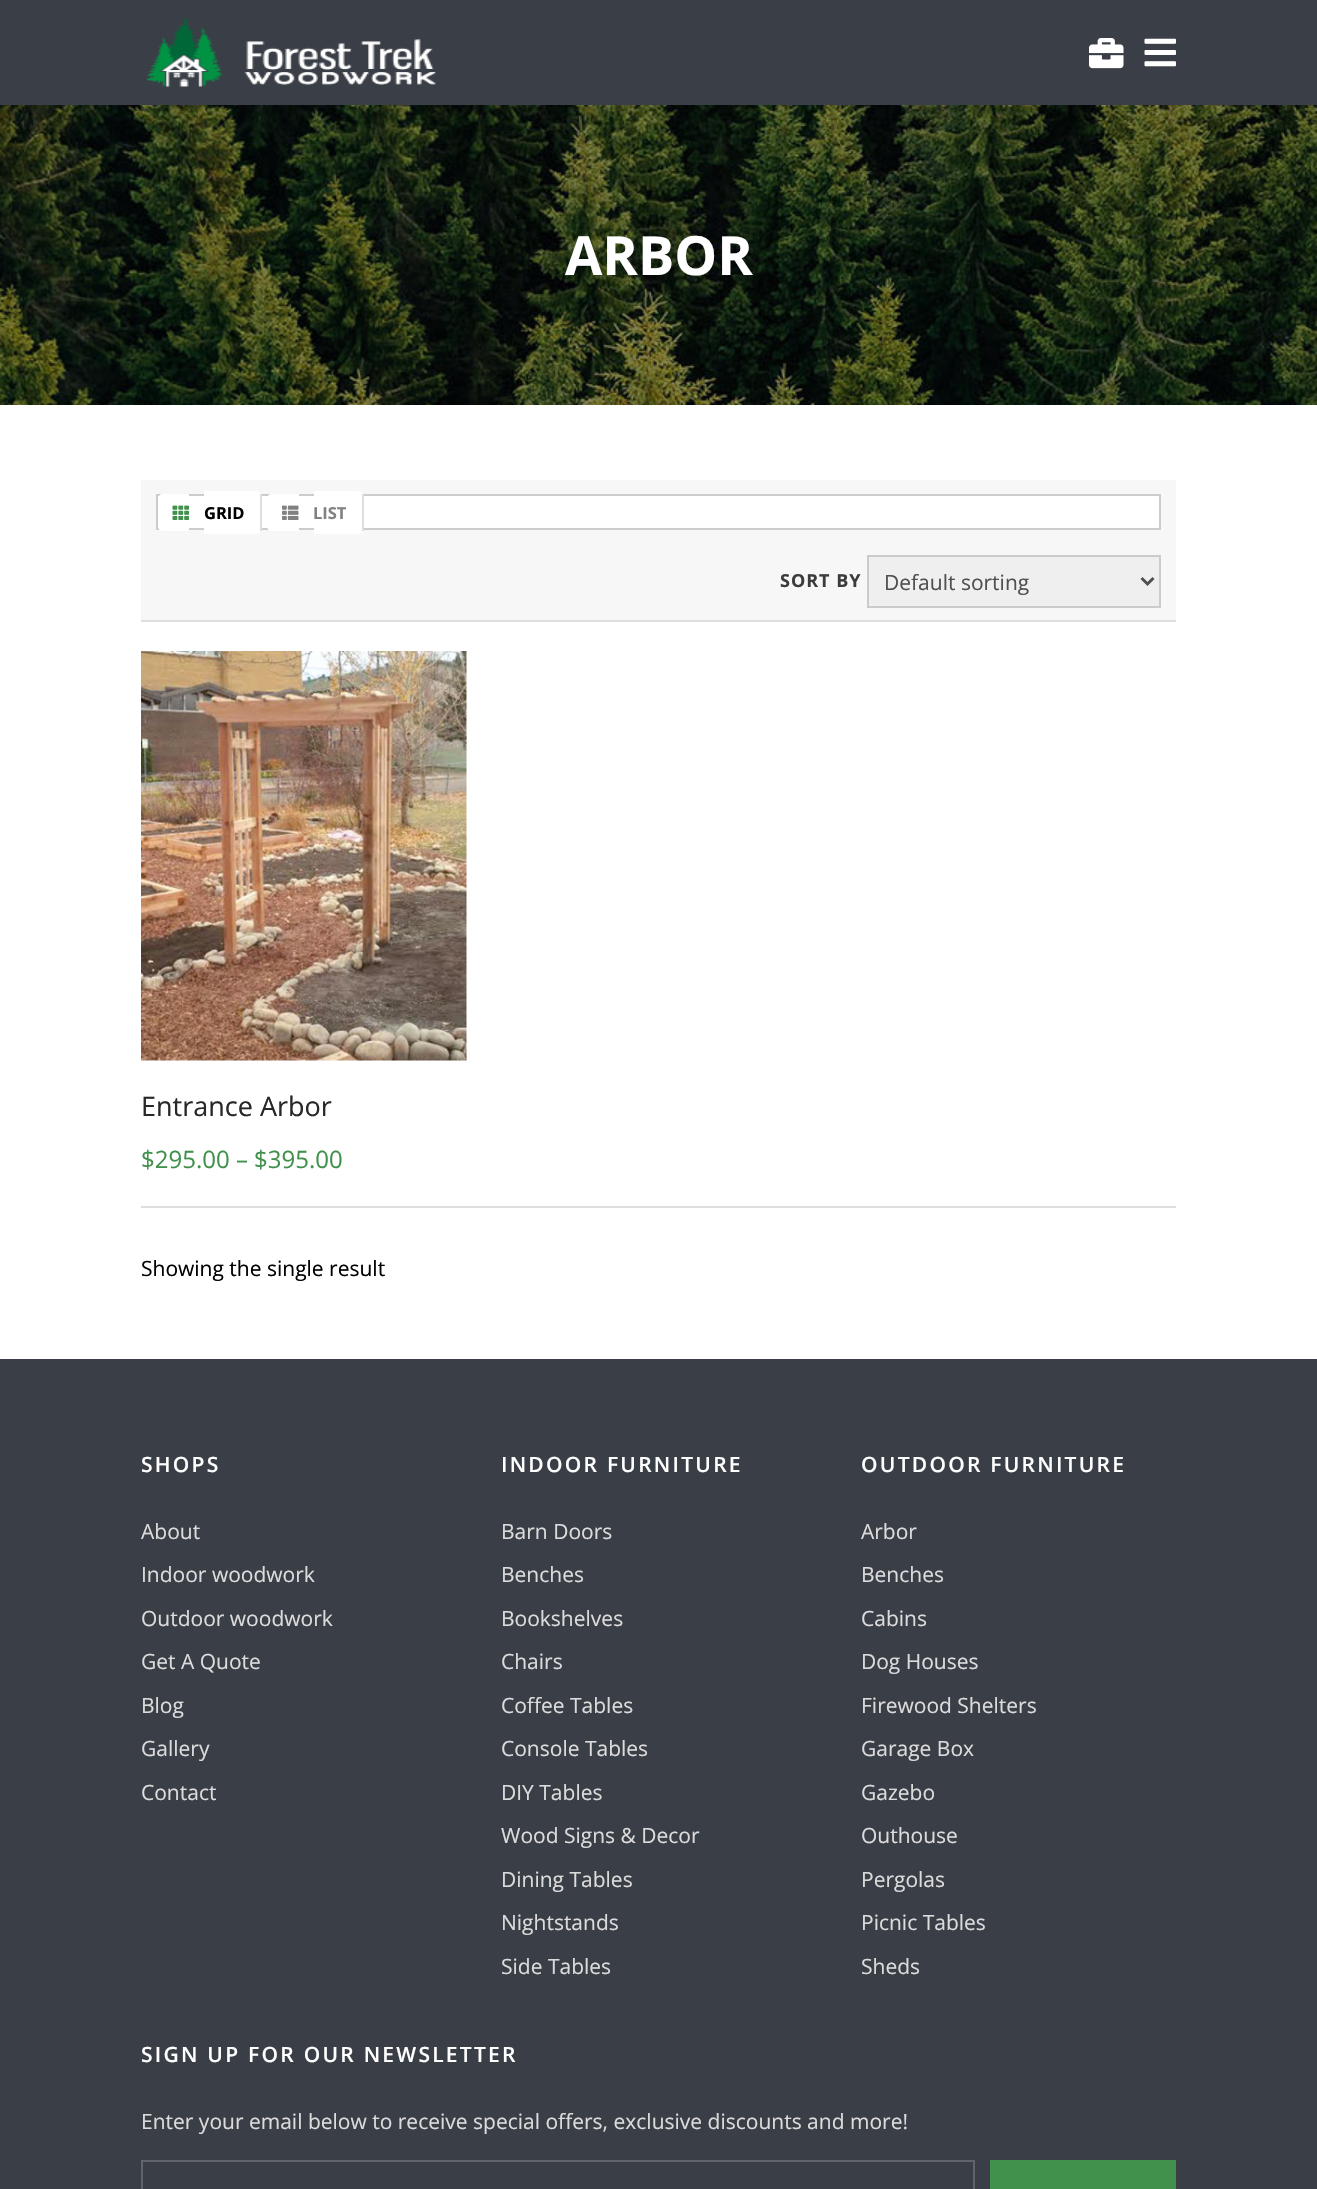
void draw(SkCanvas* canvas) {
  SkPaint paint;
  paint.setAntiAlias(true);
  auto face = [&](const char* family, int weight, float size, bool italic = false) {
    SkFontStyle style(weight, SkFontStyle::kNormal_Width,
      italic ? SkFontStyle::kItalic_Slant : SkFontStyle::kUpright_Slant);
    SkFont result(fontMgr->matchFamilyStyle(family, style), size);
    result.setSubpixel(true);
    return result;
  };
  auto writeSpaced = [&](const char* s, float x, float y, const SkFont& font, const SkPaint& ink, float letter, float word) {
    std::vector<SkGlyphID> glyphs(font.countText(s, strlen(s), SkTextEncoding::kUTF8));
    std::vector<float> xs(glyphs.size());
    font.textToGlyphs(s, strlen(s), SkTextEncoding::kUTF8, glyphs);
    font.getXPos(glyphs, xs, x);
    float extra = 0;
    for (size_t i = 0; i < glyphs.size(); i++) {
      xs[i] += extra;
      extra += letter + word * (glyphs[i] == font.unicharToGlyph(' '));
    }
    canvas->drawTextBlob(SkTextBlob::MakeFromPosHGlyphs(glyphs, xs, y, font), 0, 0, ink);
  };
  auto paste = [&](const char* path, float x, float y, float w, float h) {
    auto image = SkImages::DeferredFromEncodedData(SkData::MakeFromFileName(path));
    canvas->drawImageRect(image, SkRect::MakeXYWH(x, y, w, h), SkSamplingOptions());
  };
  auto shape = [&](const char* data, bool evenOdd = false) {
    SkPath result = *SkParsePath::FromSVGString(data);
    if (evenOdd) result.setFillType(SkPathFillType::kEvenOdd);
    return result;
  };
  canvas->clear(0xffffffff);
  paint.setColor(0xff3a3e46);
  canvas->drawRect(SkRect::MakeXYWH(0, 0, 1317, 105), paint);
  paste("img/1.png", 146, 18, 290, 69);
  paste("img/2.png", 1089, 38, 35, 31);
  paste("img/3.png", 1144, 38, 32, 29);
  paste("img/4.png", 0, 105, 1317, 300);
  paint.setColor(0xfff7f7f7);
  canvas->drawRect(SkRect::MakeXYWH(141, 480, 1035, 140), paint);
  paint.setColor(0xffdedede);
  canvas->drawRect(SkRect::MakeXYWH(141, 620, 1035, 2), paint);
  paint.setColor(0xffffffff);
  canvas->drawRect(SkRect::MakeXYWH(157, 495, 1003, 34), paint);
  paint.setStroke(true);
  paint.setStrokeWidth(2);
  paint.setColor(0xffcccccc);
  canvas->drawRect(SkRect::MakeXYWH(157, 495, 1003, 34), paint);
  paint.setStroke(false);
  paint.setColor(0xffffffff);
  canvas->drawPath(shape("M163 494H189V531H163C160 531 158 529 158 526V499C158 496 160 494 163 494Z"), paint);
  canvas->drawPath(shape("M204 491H256C259 491 261 493 261 496V529C261 532 259 534 256 534H204Z"), paint);
  paint.setColor(0xffdedede);
  canvas->drawRect(SkRect::MakeXYWH(260, 494, 2, 37), paint);
  paste("img/5.png", 172, 505, 17, 15);
  paint.setColor(0xffffffff);
  canvas->drawPath(shape("M272 494H299V531H272C269 531 267 529 267 526V499C267 496 269 494 272 494Z"), paint);
  canvas->drawPath(shape("M314 491H358C361 491 363 493 363 496V529C363 532 361 534 358 534H314Z"), paint);
  paint.setColor(0xffdedede);
  canvas->drawRect(SkRect::MakeXYWH(362, 494, 2, 37), paint);
  paste("img/6.png", 282, 505, 17, 15);
  paint.setColor(0xffefefef);
  canvas->drawRect(SkRect::MakeXYWH(868, 556, 292, 51), paint);
  paint.setStroke(true);
  paint.setColor(0xffcbcbcb);
  canvas->drawRect(SkRect::MakeXYWH(868, 556, 292, 51), paint);
  paint.setStrokeWidth(3);
  paint.setColor(0xff505050);
  canvas->drawPath(shape("M1141.5 578L1147.5 584L1153.5 578"), paint);
  paste("img/7.png", 141, 651, 326, 410);
  paint.setStroke(false);
  paint.setColor(0xffdedede);
  canvas->drawRect(SkRect::MakeXYWH(141, 1206, 1035, 2), paint);
  paint.setColor(0xff3a3e46);
  canvas->drawRect(SkRect::MakeXYWH(0, 1359, 1317, 830), paint);
  paint.setStroke(true);
  paint.setStrokeWidth(2);
  paint.setColor(0xff61656b);
  canvas->drawRect(SkRect::MakeXYWH(142, 2161, 832, 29), paint);
  paint.setStroke(false);
  paint.setColor(0xff41914d);
  canvas->drawRect(SkRect::MakeXYWH(990, 2160, 186, 29), paint);
  auto f0 = face("Open Sans", 700, 54);
  paint.setColor(0xffffffff);
  canvas->drawString("ARBOR", 565, 275, f0, paint);
  auto f1 = face("Open Sans", 700, 16.5f);
  paint.setColor(0xff000000);
  canvas->drawString("GRID", 204, 519, f1, paint);
  paint.setColor(0xff818181);
  canvas->drawString("LIST", 313, 519, f1, paint);
  auto f2 = face("Open Sans", 700, 18);
  paint.setColor(0xff3c3c3c);
  writeSpaced("SORT BY", 780, 587, f2, paint, 1, 0);
  auto f3 = face("Open Sans", 400, 21);
  paint.setColor(0xff505050);
  canvas->drawString("Default sorting", 884, 590, f3, paint);
  auto f4 = face("Open Sans", 400, 27);
  paint.setColor(0xff282828);
  canvas->drawString("Entrance Arbor", 141, 1116, f4, paint);
  auto f5 = face("Open Sans", 400, 24);
  paint.setColor(0xff41914d);
  canvas->drawString("$295.00 – $395.00", 141, 1168, f5, paint);
  paint.setColor(0xff000000);
  canvas->drawString("Showing the single result", 141, 1276, f3, paint);
  auto f6 = face("Open Sans", 600, 21);
  paint.setColor(0xffffffff);
  writeSpaced("SHOPS", 141, 1472, f6, paint, 2.25f, 0);
  paint.setColor(0xffdcdcdc);
  {
    const struct { const char* s; float x, y; } items[] = {
      {"About", 141, 1539},
      {"Indoor woodwork", 141, 1582},
      {"Outdoor woodwork", 141, 1626},
      {"Get A Quote", 141, 1669},
      {"Blog", 141, 1713},
      {"Gallery", 141, 1756},
      {"Contact", 141, 1800},
    };
    for (auto [s, x, y] : items) {
      canvas->drawString(s, x, y, f3, paint);
    }
  }
  paint.setColor(0xffffffff);
  writeSpaced("INDOOR FURNITURE", 501, 1472, f6, paint, 2.25f, 0);
  paint.setColor(0xffdcdcdc);
  {
    const struct { const char* s; float x, y; } items[] = {
      {"Barn Doors", 501, 1539},
      {"Benches", 501, 1582},
      {"Bookshelves", 501, 1626},
      {"Chairs", 501, 1669},
      {"Coffee Tables", 501, 1713},
      {"Console Tables", 501, 1756},
      {"DIY Tables", 501, 1800},
      {"Wood Signs & Decor", 501, 1843},
      {"Dining Tables", 501, 1887},
      {"Nightstands", 501, 1930},
      {"Side Tables", 501, 1974},
    };
    for (auto [s, x, y] : items) {
      canvas->drawString(s, x, y, f3, paint);
    }
  }
  paint.setColor(0xffffffff);
  writeSpaced("OUTDOOR FURNITURE", 861, 1472, f6, paint, 2.25f, 0);
  paint.setColor(0xffdcdcdc);
  {
    const struct { const char* s; float x, y; } items[] = {
      {"Arbor", 861, 1539},
      {"Benches", 861, 1582},
      {"Cabins", 861, 1626},
      {"Dog Houses", 861, 1669},
      {"Firewood Shelters", 861, 1713},
      {"Garage Box", 861, 1756},
      {"Gazebo", 861, 1800},
      {"Outhouse", 861, 1843},
      {"Pergolas", 861, 1887},
      {"Picnic Tables", 861, 1930},
      {"Sheds", 861, 1974},
    };
    for (auto [s, x, y] : items) {
      canvas->drawString(s, x, y, f3, paint);
    }
  }
  paint.setColor(0xffffffff);
  writeSpaced("SIGN UP FOR OUR NEWSLETTER", 141, 2062, f6, paint, 2.25f, 0);
  paint.setColor(0xffdcdcdc);
  canvas->drawString("Enter your email below to receive special offers, exclusive discounts and more!", 141, 2129, f3, paint);
}
